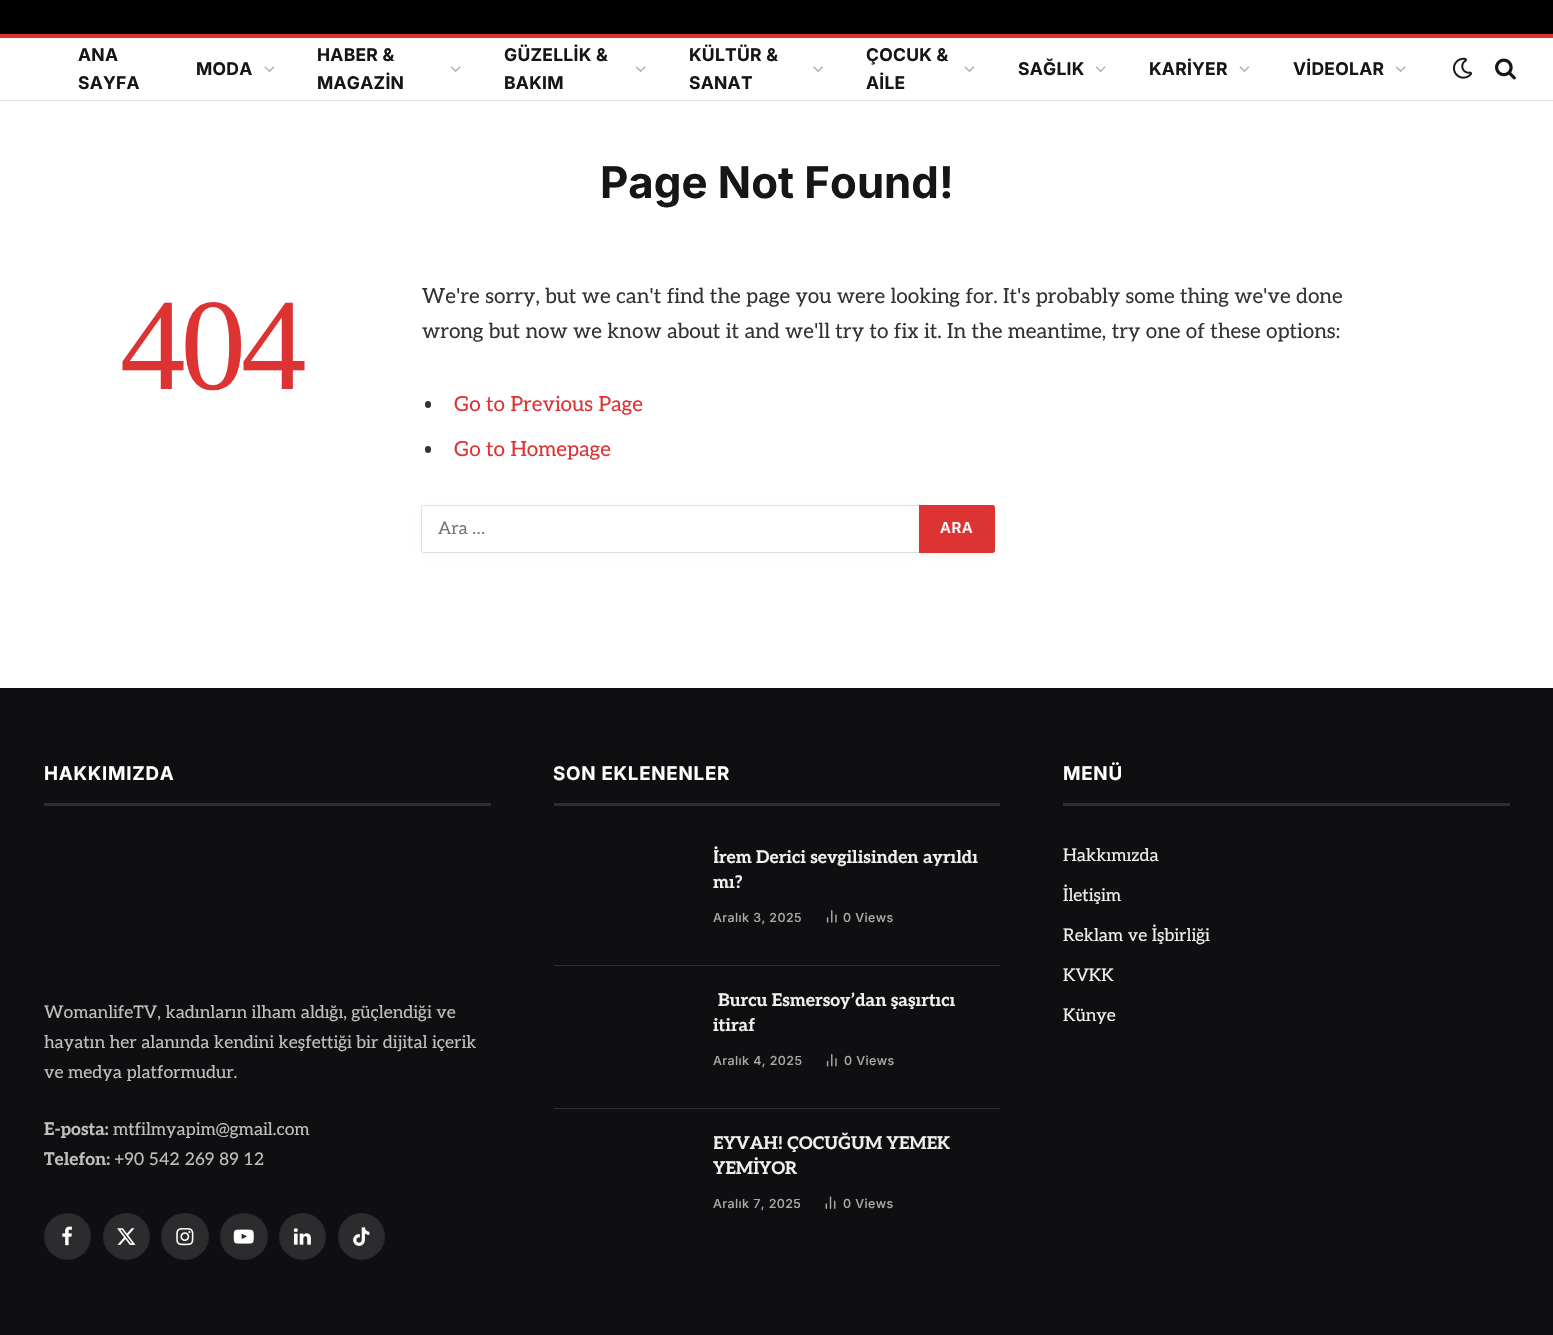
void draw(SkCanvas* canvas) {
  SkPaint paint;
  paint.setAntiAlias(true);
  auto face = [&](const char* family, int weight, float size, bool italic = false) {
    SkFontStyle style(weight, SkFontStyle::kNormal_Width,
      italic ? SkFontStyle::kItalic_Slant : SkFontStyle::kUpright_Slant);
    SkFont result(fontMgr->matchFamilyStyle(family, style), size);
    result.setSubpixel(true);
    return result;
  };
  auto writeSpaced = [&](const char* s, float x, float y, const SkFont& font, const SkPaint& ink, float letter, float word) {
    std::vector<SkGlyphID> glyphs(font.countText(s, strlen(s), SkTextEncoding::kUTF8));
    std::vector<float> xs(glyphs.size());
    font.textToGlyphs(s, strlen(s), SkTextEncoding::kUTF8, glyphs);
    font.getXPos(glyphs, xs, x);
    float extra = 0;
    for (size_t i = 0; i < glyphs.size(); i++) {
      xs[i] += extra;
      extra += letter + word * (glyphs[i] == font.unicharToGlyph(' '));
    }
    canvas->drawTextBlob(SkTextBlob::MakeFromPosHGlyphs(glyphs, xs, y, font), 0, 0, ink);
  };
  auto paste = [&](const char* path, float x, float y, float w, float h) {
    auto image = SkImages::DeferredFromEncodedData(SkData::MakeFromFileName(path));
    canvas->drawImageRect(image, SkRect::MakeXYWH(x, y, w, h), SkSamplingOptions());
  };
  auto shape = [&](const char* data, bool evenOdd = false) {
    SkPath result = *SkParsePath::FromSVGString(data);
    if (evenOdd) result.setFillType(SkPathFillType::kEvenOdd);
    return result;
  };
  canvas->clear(0xffffffff);
  {
    const struct { float x, y, w, h; SkColor color; } items[] = {
      {0, 0, 1553, 34, 0xff000000},
      {0, 34, 1553, 4, 0xffdd3333},
      {0, 100, 1553, 1, 0xffe2e2e2},
    };
    for (auto [x, y, w, h, color] : items) {
      paint.setColor(color);
      canvas->drawRect(SkRect::MakeXYWH(x, y, w, h), paint);
    }
  }
  paste("img/1.png", 264, 66, 11, 6);
  paste("img/2.png", 450, 66, 11, 6);
  paste("img/2.png", 635, 66, 11, 6);
  paste("img/3.png", 813, 66, 10, 6);
  paste("img/1.png", 964, 66, 11, 6);
  paste("img/2.png", 1095, 66, 11, 6);
  paste("img/1.png", 1239, 66, 11, 6);
  paste("img/2.png", 1395, 66, 11, 6);
  paste("img/4.png", 1453, 57, 19, 22);
  paste("img/5.png", 1495, 58, 21, 22);
  paint.setColor(0xff333333);
  canvas->drawRoundRect(SkRect::MakeXYWH(425, 401, 6, 7), 3, 3, paint);
  canvas->drawRoundRect(SkRect::MakeXYWH(425, 446, 6, 7), 3, 3, paint);
  paint.setColor(0x1a000000);
  paint.setMaskFilter(SkMaskFilter::MakeBlur(kNormal_SkBlurStyle, 4.5f));
  canvas->drawRect(SkRect::MakeXYWH(426, 513, 490, 37), paint);
  paint.setMaskFilter(nullptr);
  paint.setColor(0xffffffff);
  canvas->drawRoundRect(SkRect::MakeXYWH(421.5f, 505.5f, 499, 47), 2, 2, paint);
  paint.setStroke(true);
  paint.setStrokeWidth(1);
  paint.setColor(0xffdddddd);
  canvas->drawRoundRect(SkRect::MakeXYWH(421.5f, 505.5f, 499, 47), 2, 2, paint);
  paint.setStroke(false);
  paint.setColor(0x29000000);
  paint.setMaskFilter(SkMaskFilter::MakeBlur(kNormal_SkBlurStyle, 4.5f));
  canvas->drawRect(SkRect::MakeXYWH(924, 513, 66, 37), paint);
  paint.setMaskFilter(nullptr);
  paint.setColor(0xffdd3333);
  canvas->drawPath(shape("M919 505H992.5C994 505 995 506 995 507.5V550.5C995 552 994 553 992.5 553H919Z"), paint);
  paint.setColor(0xff0f0f11);
  canvas->drawRect(SkRect::MakeXYWH(0, 688, 1553, 647), paint);
  paint.setColor(0xff2e2e30);
  canvas->drawRect(SkRect::MakeXYWH(44, 803, 447, 3), paint);
  paint.setColor(0xff2c2c2e);
  canvas->drawCircle(67.5f, 1236.5f, 23.5f, paint);
  paint.setStroke(true);
  paint.setColor(0x17000000);
  canvas->drawCircle(67.5f, 1236.5f, 23, paint);
  paste("img/6.png", 62, 1226, 10, 20);
  paint.setStroke(false);
  paint.setColor(0xff2c2c2e);
  canvas->drawCircle(126.5f, 1236.5f, 23.5f, paint);
  paint.setStroke(true);
  paint.setColor(0x17000000);
  canvas->drawCircle(126.5f, 1236.5f, 23, paint);
  paste("img/7.png", 117, 1228, 19, 17);
  paint.setStroke(false);
  paint.setColor(0xff2c2c2e);
  canvas->drawRoundRect(SkRect::MakeXYWH(161, 1213, 48, 47), 23.5f, 23.5f, paint);
  paint.setStroke(true);
  paint.setColor(0x17000000);
  canvas->drawRoundRect(SkRect::MakeXYWH(161.5f, 1213.5f, 47, 46), 23, 23, paint);
  paste("img/8.png", 176, 1228, 18, 18);
  paint.setStroke(false);
  paint.setColor(0xff2c2c2e);
  canvas->drawRoundRect(SkRect::MakeXYWH(220, 1213, 48, 47), 23.5f, 23.5f, paint);
  paint.setStroke(true);
  paint.setColor(0x17000000);
  canvas->drawRoundRect(SkRect::MakeXYWH(220.5f, 1213.5f, 47, 46), 23, 23, paint);
  paste("img/9.png", 233, 1229, 21, 15);
  paint.setStroke(false);
  paint.setColor(0xff2c2c2e);
  canvas->drawCircle(302.5f, 1236.5f, 23.5f, paint);
  paint.setStroke(true);
  paint.setColor(0x17000000);
  canvas->drawCircle(302.5f, 1236.5f, 23, paint);
  paste("img/10.png", 293, 1228, 18, 17);
  paint.setStroke(false);
  paint.setColor(0xff2c2c2e);
  canvas->drawCircle(361.5f, 1236.5f, 23.5f, paint);
  paint.setStroke(true);
  paint.setColor(0x17000000);
  canvas->drawCircle(361.5f, 1236.5f, 23, paint);
  paste("img/11.png", 353, 1227, 17, 19);
  paint.setStroke(false);
  paint.setColor(0xff2e2e30);
  canvas->drawRect(SkRect::MakeXYWH(554, 803, 446, 3), paint);
  paste("img/12.png", 826, 910, 11, 13);
  canvas->drawRect(SkRect::MakeXYWH(554, 965, 446, 1), paint);
  paste("img/13.png", 826, 1054, 11, 13);
  canvas->drawRect(SkRect::MakeXYWH(554, 1108, 446, 1), paint);
  paste("img/14.png", 825, 1196, 11, 13);
  canvas->drawRect(SkRect::MakeXYWH(1063, 803, 447, 3), paint);
  auto f0 = face("Inter", 700, 17.5f);
  paint.setColor(0xff161616);
  {
    const struct { const char* s; float x, y; } items[] = {
      {"ANA", 78, 61},
      {"SAYFA", 78, 89},
      {"MODA", 196, 75},
      {"HABER &", 317, 61},
      {"MAGAZİN", 317, 89},
      {"GÜZELLİK &", 504, 61},
      {"BAKIM", 504, 89},
      {"KÜLTÜR &", 689, 61},
      {"SANAT", 689, 89},
      {"ÇOCUK &", 866, 61},
      {"AİLE", 866, 89},
      {"SAĞLIK", 1018, 75},
      {"KARİYER", 1149, 75},
      {"VİDEOLAR", 1293, 75},
    };
    for (auto [s, x, y] : items) {
      writeSpaced(s, x, y, f0, paint, 0.25f, 0);
    }
  }
  auto f1 = face("Inter", 700, 43.75f);
  canvas->drawString("Page Not Found!", 600, 198, f1, paint);
  auto f2 = face("Liberation Serif", 400, 131);
  paint.setColor(0xffdd3333);
  writeSpaced("404", 120, 389, f2, paint, -5, 0);
  auto f3 = face("Aleo", 400, 20.75f);
  paint.setColor(0xff333333);
  canvas->drawString("We're sorry, but we can't find the page you were looking for. It's probably some thing we've done", 422, 303, f3, paint);
  canvas->drawString("wrong but now we know about it and we'll try to fix it. In the meantime, try one of these options:", 422, 338, f3, paint);
  paint.setColor(0xffdd3333);
  canvas->drawString("Go to Previous Page", 454, 411, f3, paint);
  canvas->drawString("Go to Homepage", 454, 456, f3, paint);
  auto f4 = face("Aleo", 400, 17.5f);
  paint.setColor(0xff777777);
  canvas->drawString("Ara …", 438, 534, f4, paint);
  auto f5 = face("Inter", 600, 15);
  paint.setColor(0xffffffff);
  writeSpaced("ARA", 940, 533, f5, paint, 0.5f, 0);
  auto f6 = face("Inter", 700, 18.75f);
  writeSpaced("HAKKIMIZDA", 44, 780, f6, paint, 0.75f, 0);
  paint.setColor(0xffc0c0c0);
  {
    const struct { const char* s; float x, y; } items[] = {
      {"WomanlifeTV, kadınların ilham aldığı, güçlendiği ve", 44, 1018},
      {"hayatın her alanında kendini keşfettiği bir dijital içerik", 44, 1048},
      {"ve medya platformudur.", 44, 1078},
    };
    for (auto [s, x, y] : items) {
      canvas->drawString(s, x, y, f4, paint);
    }
  }
  auto f7 = face("Aleo", 700, 17.5f);
  canvas->drawString("E-posta:", 44, 1135, f7, paint);
  canvas->drawString("mtfilmyapim@gmail.com", 113, 1135, f4, paint);
  canvas->drawString("Telefon:", 44, 1165, f7, paint);
  canvas->drawString("+90 542 269 89 12", 114, 1165, f4, paint);
  paint.setColor(0xffffffff);
  writeSpaced("SON EKLENENLER", 553, 780, f6, paint, 0.75f, 0);
  canvas->save();
  canvas->clipRect(SkRect::MakeXYWH(714, 845, 286, 50));
  paint.setColor(0xfff0f0f0);
  canvas->drawString("İrem Derici sevgilisinden ayrıldı", 713, 863, f7, paint);
  canvas->restore();
  canvas->drawString("mı?", 713, 888, f7, paint);
  auto f8 = face("Inter", 500, 12.5f);
  paint.setColor(0xffababac);
  writeSpaced("Aralık 3, 2025", 713, 922, f8, paint, 0.4f, 0);
  writeSpaced("0 Views", 843, 922, f8, paint, 0.4f, 0);
  paint.setColor(0xfff0f0f0);
  canvas->drawString("Burcu Esmersoy’dan şaşırtıcı", 718, 1006, f7, paint);
  canvas->drawString("itiraf", 713, 1031, f7, paint);
  paint.setColor(0xffababac);
  writeSpaced("Aralık 4, 2025", 713, 1065, f8, paint, 0.4f, 0);
  writeSpaced("0 Views", 844, 1065, f8, paint, 0.4f, 0);
  canvas->save();
  canvas->clipRect(SkRect::MakeXYWH(714, 1131, 286, 50));
  paint.setColor(0xfff0f0f0);
  canvas->drawString("EYVAH! ÇOCUĞUM YEMEK", 713, 1149, f7, paint);
  canvas->restore();
  canvas->drawString("YEMİYOR", 713, 1174, f7, paint);
  paint.setColor(0xffababac);
  writeSpaced("Aralık 7, 2025", 713, 1208, f8, paint, 0.4f, 0);
  writeSpaced("0 Views", 843, 1208, f8, paint, 0.4f, 0);
  paint.setColor(0xffffffff);
  writeSpaced("MENÜ", 1063, 780, f6, paint, 0.75f, 0);
  paint.setColor(0xfff0f0f0);
  {
    const struct { const char* s; float x, y; } items[] = {
      {"Hakkımızda", 1063, 861},
      {"İletişim", 1063, 901},
      {"Reklam ve İşbirliği", 1063, 941},
      {"KVKK", 1063, 981},
      {"Künye", 1063, 1021},
    };
    for (auto [s, x, y] : items) {
      canvas->drawString(s, x, y, f4, paint);
    }
  }
}
